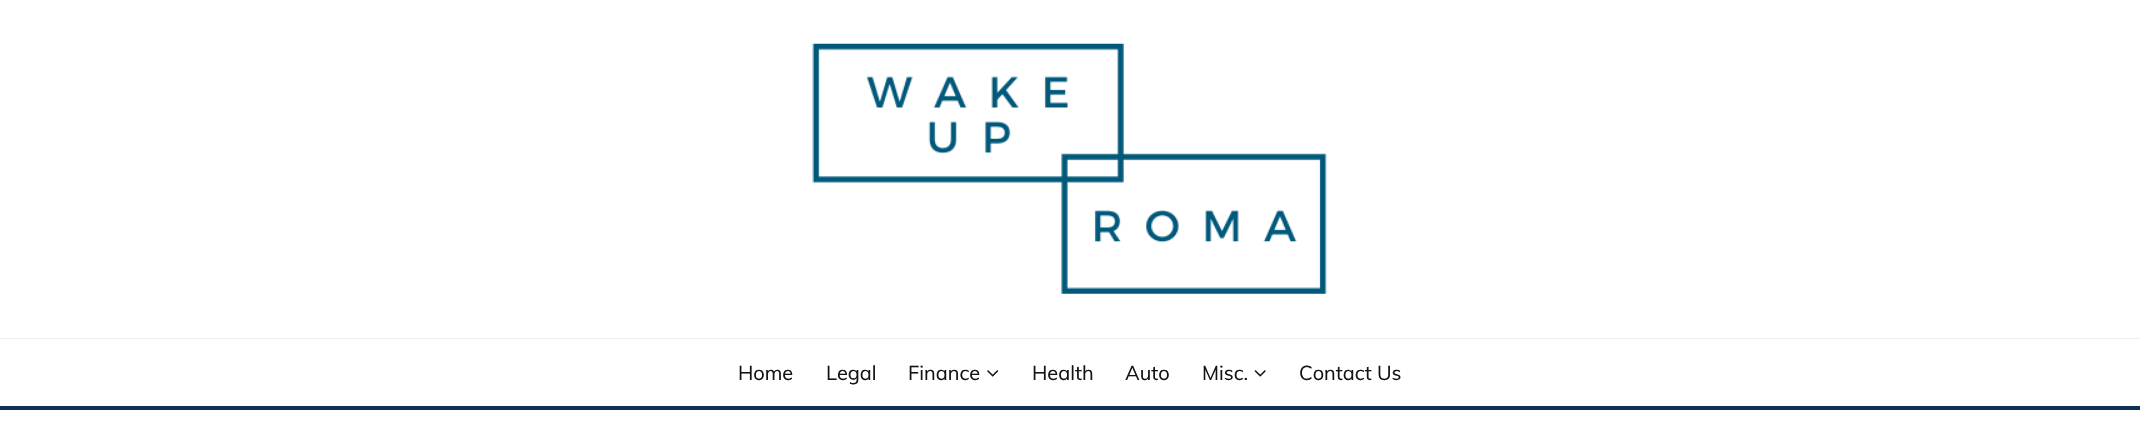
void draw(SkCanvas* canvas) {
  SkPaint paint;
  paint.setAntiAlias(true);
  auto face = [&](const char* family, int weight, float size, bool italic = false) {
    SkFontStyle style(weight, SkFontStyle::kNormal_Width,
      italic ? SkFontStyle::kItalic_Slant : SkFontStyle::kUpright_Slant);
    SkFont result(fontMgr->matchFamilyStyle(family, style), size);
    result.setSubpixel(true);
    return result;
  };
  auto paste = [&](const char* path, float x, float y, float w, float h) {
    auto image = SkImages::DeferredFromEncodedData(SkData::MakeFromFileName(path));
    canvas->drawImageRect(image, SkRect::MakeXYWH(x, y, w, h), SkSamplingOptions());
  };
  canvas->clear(0xffffffff);
  paint.setColor(0xffeeeeee);
  canvas->drawRect(SkRect::MakeXYWH(0, 338, 2140, 1), paint);
  paste("img/1.png", 812, 43, 515, 251);
  paint.setColor(0xff0f3057);
  canvas->drawRect(SkRect::MakeXYWH(0, 406, 2140, 4), paint);
  paste("img/2.png", 987, 370, 12, 7);
  paste("img/3.png", 1254, 370, 12, 7);
  auto f0 = face("Muli", 400, 20);
  paint.setColor(0xff141413);
  {
    const struct { const char* s; float x, y; } items[] = {
      {"Home", 738, 380},
      {"Legal", 826, 380},
      {"Finance", 908, 380},
      {"Health", 1032, 380},
      {"Auto", 1125, 380},
      {"Misc.", 1202, 380},
      {"Contact Us", 1299, 380},
    };
    for (auto [s, x, y] : items) {
      canvas->drawString(s, x, y, f0, paint);
    }
  }
}
